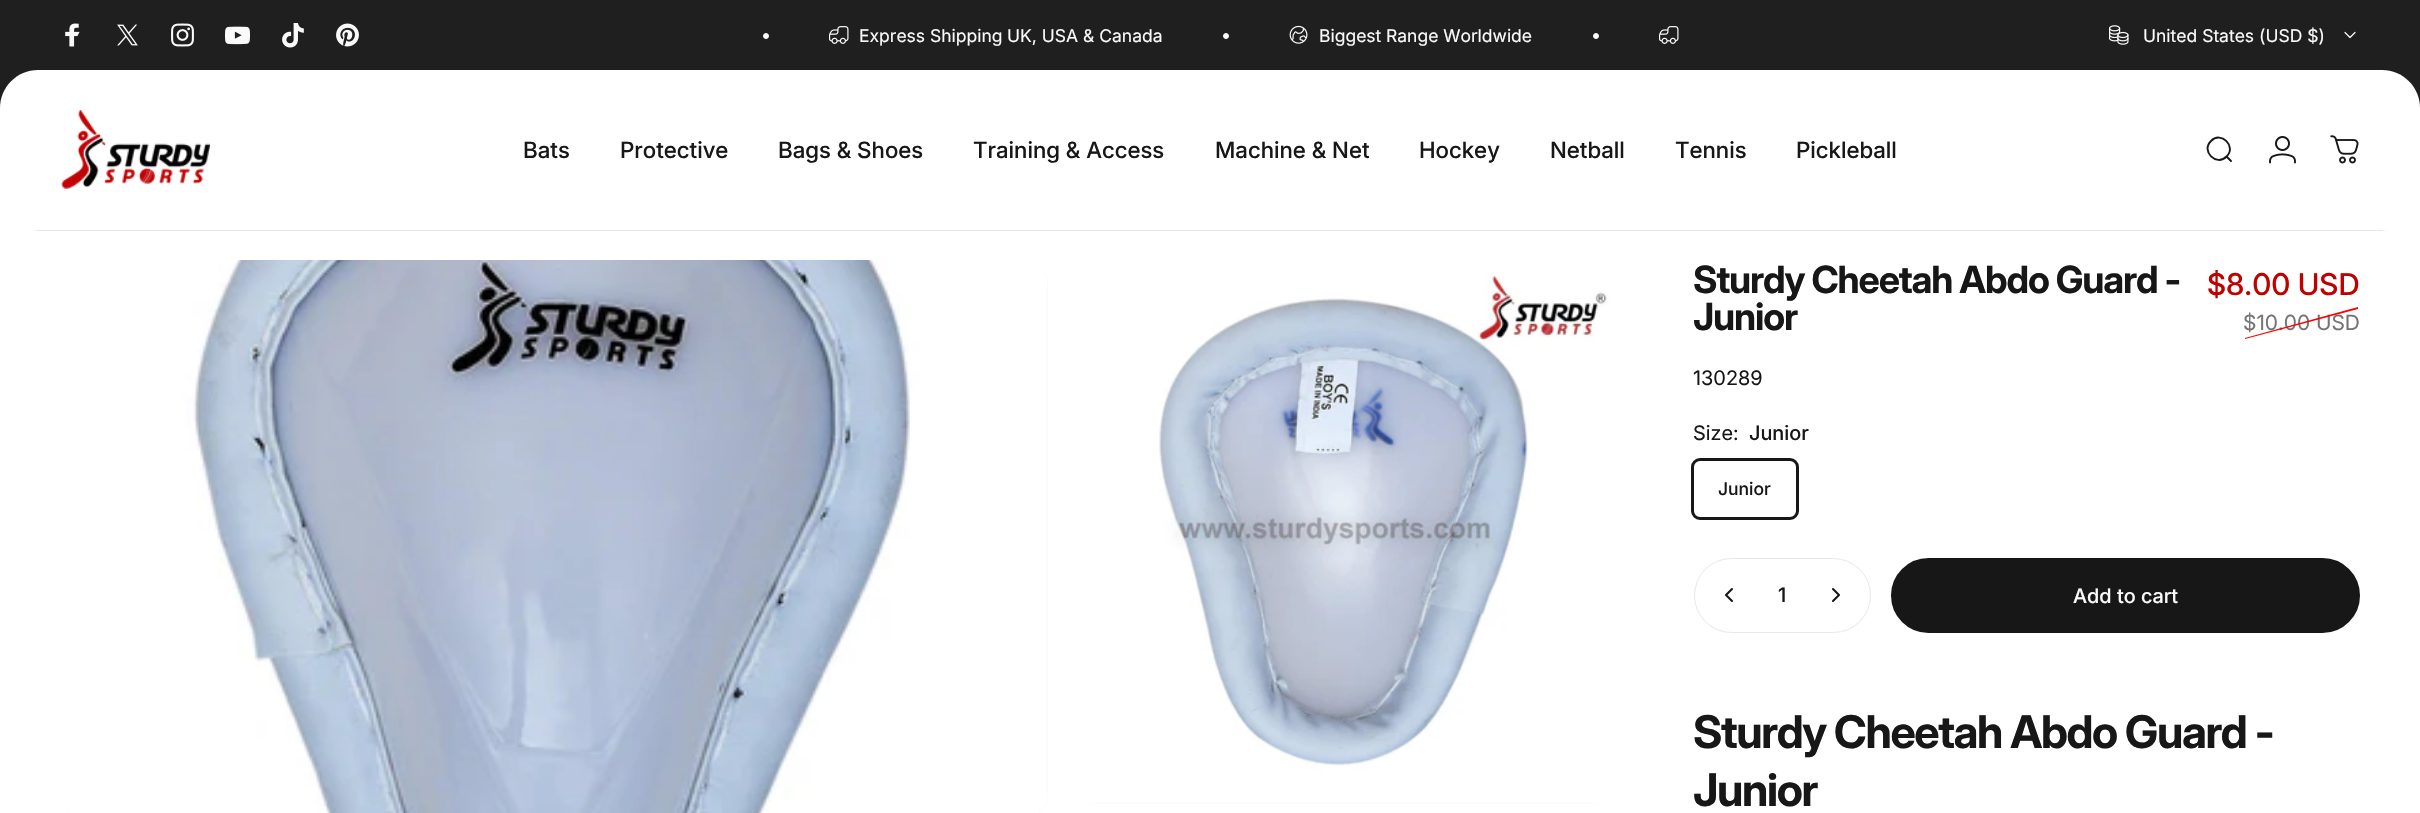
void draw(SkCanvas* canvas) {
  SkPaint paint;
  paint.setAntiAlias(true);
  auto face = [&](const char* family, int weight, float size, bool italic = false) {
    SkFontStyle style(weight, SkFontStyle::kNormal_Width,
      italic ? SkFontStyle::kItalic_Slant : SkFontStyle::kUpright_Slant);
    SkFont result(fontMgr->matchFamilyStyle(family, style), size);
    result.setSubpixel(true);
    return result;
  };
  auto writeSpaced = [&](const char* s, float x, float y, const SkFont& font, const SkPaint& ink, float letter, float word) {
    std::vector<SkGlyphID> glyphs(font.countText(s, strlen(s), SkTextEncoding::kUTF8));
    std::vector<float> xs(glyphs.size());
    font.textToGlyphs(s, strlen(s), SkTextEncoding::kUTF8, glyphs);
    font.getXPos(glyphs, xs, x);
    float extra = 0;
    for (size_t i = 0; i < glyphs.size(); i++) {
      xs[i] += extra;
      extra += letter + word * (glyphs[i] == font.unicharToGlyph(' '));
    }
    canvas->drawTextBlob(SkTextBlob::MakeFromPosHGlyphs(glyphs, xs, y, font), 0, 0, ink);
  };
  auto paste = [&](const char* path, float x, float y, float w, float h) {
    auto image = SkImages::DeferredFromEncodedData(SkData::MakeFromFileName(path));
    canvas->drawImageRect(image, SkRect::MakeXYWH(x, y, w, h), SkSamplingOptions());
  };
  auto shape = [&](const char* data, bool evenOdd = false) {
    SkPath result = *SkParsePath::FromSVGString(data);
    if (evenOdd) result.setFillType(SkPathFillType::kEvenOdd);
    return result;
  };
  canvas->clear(0xffffffff);
  paint.setColor(0xff1f1f1f);
  canvas->drawRect(SkRect::MakeXYWH(0, 0, 2420, 38), paint);
  canvas->drawPath(shape("M38 0H2382C2403 0 2420 17 2420 38V108H0V38C0 17 17 0 38 0Z"), paint);
  paste("img/1.png", 65, 23, 15, 24);
  paste("img/2.png", 117, 24, 21, 22);
  paste("img/3.png", 171, 23, 23, 24);
  paste("img/4.png", 225, 26, 25, 19);
  paste("img/5.png", 282, 23, 22, 25);
  paste("img/6.png", 336, 23, 23, 24);
  paint.setColor(0xfffafafa);
  canvas->drawCircle(766, 36, 2.5f, paint);
  paint.setStroke(true);
  paint.setStrokeWidth(1);
  canvas->drawCircle(766, 36, 2.5f, paint);
  paste("img/7.png", 829, 26, 20, 18);
  paint.setStroke(false);
  canvas->drawCircle(1226, 36, 2.5f, paint);
  paint.setStroke(true);
  canvas->drawCircle(1226, 36, 2.5f, paint);
  paste("img/8.png", 1289, 25, 19, 19);
  paint.setStroke(false);
  canvas->drawCircle(1596, 36, 2.5f, paint);
  paint.setStroke(true);
  canvas->drawCircle(1596, 36, 2.5f, paint);
  paste("img/7.png", 1659, 26, 20, 18);
  paste("img/9.png", 2109, 25, 20, 20);
  paint.setStrokeWidth(1.2f);
  paint.setStrokeCap(SkPaint::kRound_Cap);
  paint.setStrokeJoin(SkPaint::kRound_Join);
  canvas->drawPath(shape("M2345 32.5L2350 37.5L2355 32.5"), paint);
  paint.setStroke(false);
  paint.setColor(0xffffffff);
  canvas->drawPath(shape("M38 70H2382C2403 70 2420 87 2420 108V230H0V108C0 87 17 70 38 70Z"), paint);
  paste("img/10.png", 61, 110, 149, 79);
  paint.setStroke(true);
  paint.setStrokeWidth(1.9f);
  paint.setStrokeJoin(SkPaint::kMiter_Join);
  paint.setColor(0xff171717);
  canvas->drawPath(shape("M2231 161L2226.5 156.5M2226.5 156.5C2237 146.5 2221 130.5 2211 141C2200.5 151 2216.5 167 2226.5 156.5Z"), paint);
  paste("img/11.png", 2269, 136, 27, 28);
  paste("img/12.png", 2330, 135, 29, 29);
  paint.setStroke(false);
  paint.setColor(0xffe8e8e8);
  canvas->drawRect(SkRect::MakeXYWH(31, 230, 2358, 1), paint);
  paint.setColor(0xffffffff);
  canvas->drawPath(shape("M37.5 230H0V267.5H.5C.5 247 17 230.5 37.5 230.5Z", true), paint);
  canvas->drawPath(shape("M2382.5 230H2420V267.5H2419.5C2419.5 247 2403 230.5 2382.5 230.5Z", true), paint);
  paint.setColor(0xfffafafa);
  canvas->drawRoundRect(SkRect::MakeXYWH(60, 260, 988, 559), 25, 25, paint);
  paste("img/13.png", 60, 260, 987, 553);
  canvas->drawRoundRect(SkRect::MakeXYWH(1073, 260, 543, 544), 25, 25, paint);
  paste("img/14.png", 1073, 260, 543, 543);
  paint.setStroke(true);
  paint.setStrokeWidth(3);
  paint.setStrokeCap(SkPaint::kButt_Cap);
  paint.setColor(0xff171717);
  canvas->drawRoundRect(SkRect::MakeXYWH(1692.5f, 459.5f, 105, 59), 7.5f, 7.5f, paint);
  paint.setStrokeWidth(1);
  paint.setColor(0xffe8e8e8);
  canvas->drawRoundRect(SkRect::MakeXYWH(1694.5f, 558.5f, 176, 74), 37, 37, paint);
  paint.setStrokeWidth(2.1f);
  paint.setStrokeCap(SkPaint::kRound_Cap);
  paint.setStrokeJoin(SkPaint::kRound_Join);
  paint.setColor(0xff171717);
  canvas->drawPath(shape("M1732 589L1726 595L1732 601"), paint);
  canvas->drawPath(shape("M1833 589L1839 595L1833 601"), paint);
  paint.setStroke(false);
  canvas->drawRoundRect(SkRect::MakeXYWH(1892.5f, 559.5f, 466, 72), 36, 36, paint);
  paint.setStroke(true);
  paint.setStrokeWidth(3);
  paint.setStrokeCap(SkPaint::kButt_Cap);
  paint.setStrokeJoin(SkPaint::kMiter_Join);
  canvas->drawRoundRect(SkRect::MakeXYWH(1892.5f, 559.5f, 466, 72), 36, 36, paint);
  auto f0 = face("Inter", 400, 17.5f);
  paint.setStroke(false);
  paint.setColor(0xfffafafa);
  {
    const struct { const char* s; float x, y; } items[] = {
      {"Express Shipping", 859, 42},
      {"UK, USA & Canada", 1007, 42},
      {"Biggest", 1319, 42},
      {"Range Worldwide", 1386, 42},
      {"United States (USD $)", 2143, 42},
    };
    for (auto [s, x, y] : items) {
      canvas->drawString(s, x, y, f0, paint);
    }
  }
  auto f1 = face("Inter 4", 500, 22.5f);
  paint.setColor(0xff171717);
  {
    const struct { const char* s; float x, y; } items[] = {
      {"Bats", 523, 158},
      {"Protective", 620, 158},
      {"Bags & Shoes", 778, 158},
      {"Training & Access", 973, 158},
      {"Machine & Net", 1215, 158},
      {"Hockey", 1419, 158},
      {"Netball", 1550, 158},
      {"Tennis", 1675, 158},
      {"Pickleball", 1796, 158},
    };
    for (auto [s, x, y] : items) {
      canvas->drawString(s, x, y, f1, paint);
    }
  }
  auto f2 = face("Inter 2", 700, 37.5f);
  writeSpaced("Sturdy Cheetah Abdo Guard -", 1693, 293, f2, paint, -1.1f, 0);
  writeSpaced("Junior", 1693, 330, f2, paint, -1.1f, 0);
  auto f3 = face("Inter", 500, 30);
  paint.setColor(0xffbf0200);
  canvas->drawString("$8.00 USD", 2207, 295, f3, paint);
  auto f4 = face("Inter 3", 400, 21);
  paint.setColor(0xff747474);
  canvas->drawString("$10.00 USD", 2243, 330, f4, paint);
  paint.setColor(0xffff0000);
  canvas->drawPath(shape("M2245 338L2358 307V309L2245 339Z"), paint);
  auto f5 = face("Inter 2", 400, 20);
  paint.setColor(0xff171717);
  canvas->drawString("130289", 1693, 385, f5, paint);
  canvas->drawString("Size:", 1693, 440, f5, paint);
  auto f6 = face("Inter 2", 500, 20);
  canvas->drawString("Junior", 1749, 440, f6, paint);
  auto f7 = face("Inter 3", 500, 17.5f);
  canvas->drawString("Junior", 1718, 495, f7, paint);
  canvas->drawString("1", 1778, 602, f6, paint);
  paint.setColor(0xfffafafa);
  canvas->drawString("Add to cart", 2073, 603, f6, paint);
  auto f8 = face("Inter", 700, 45);
  paint.setColor(0xff171717);
  writeSpaced("Sturdy Cheetah Abdo Guard -", 1693, 748, f8, paint, -1.35f, 0);
  writeSpaced("Junior", 1693, 806, f8, paint, -1.35f, 0);
}
